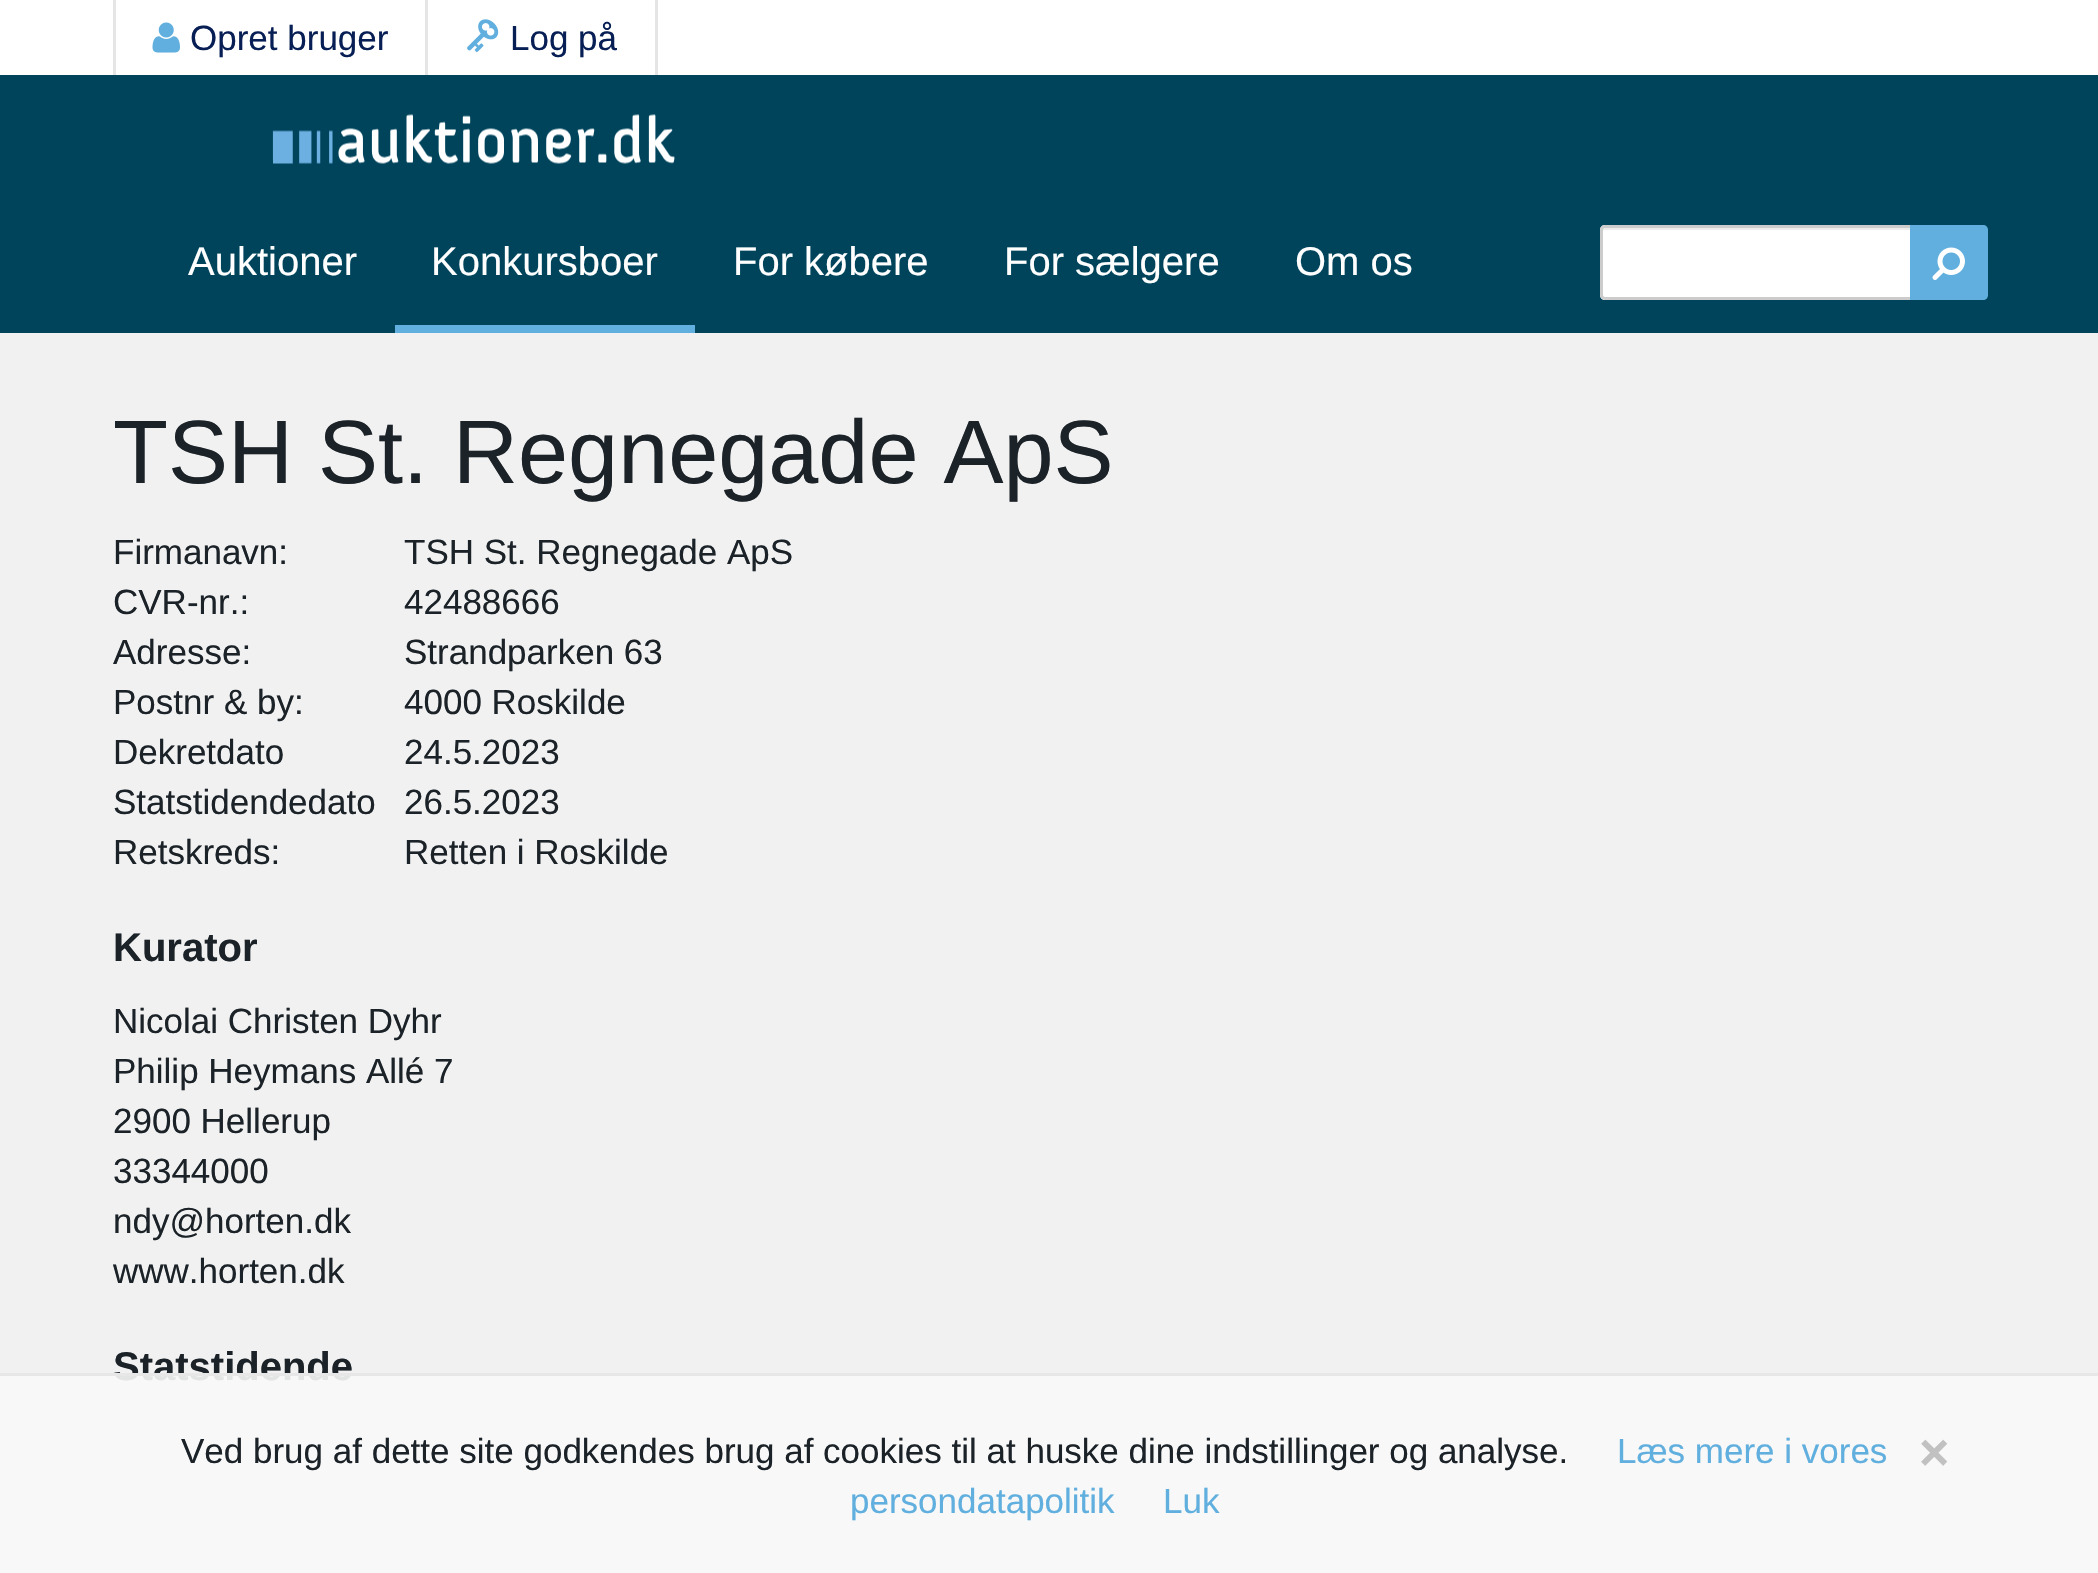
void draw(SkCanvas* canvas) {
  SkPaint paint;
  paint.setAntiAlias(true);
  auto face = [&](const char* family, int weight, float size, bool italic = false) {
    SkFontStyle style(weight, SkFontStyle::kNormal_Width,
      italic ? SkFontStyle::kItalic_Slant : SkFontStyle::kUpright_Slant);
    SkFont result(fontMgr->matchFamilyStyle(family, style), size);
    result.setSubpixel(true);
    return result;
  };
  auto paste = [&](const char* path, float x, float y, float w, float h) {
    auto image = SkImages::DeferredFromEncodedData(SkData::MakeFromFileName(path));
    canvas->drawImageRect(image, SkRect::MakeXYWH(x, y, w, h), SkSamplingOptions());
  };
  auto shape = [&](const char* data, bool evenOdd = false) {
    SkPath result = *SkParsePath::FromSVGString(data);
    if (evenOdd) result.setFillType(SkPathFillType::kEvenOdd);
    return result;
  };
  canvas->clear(0xfff1f1f1);
  {
    const struct { float x, y, w, h; SkColor color; } items[] = {
      {0, 0, 2098, 75, 0xffffffff},
      {425, 0, 3, 75, 0xffe5e5e5},
      {113, 0, 3, 75, 0xffe5e5e5},
    };
    for (auto [x, y, w, h, color] : items) {
      paint.setColor(color);
      canvas->drawRect(SkRect::MakeXYWH(x, y, w, h), paint);
    }
  }
  paste("img/1.png", 152, 22, 28, 31);
  canvas->drawRect(SkRect::MakeXYWH(655, 0, 3, 75), paint);
  paste("img/2.png", 467, 19, 32, 34);
  paint.setColor(0xff00445c);
  canvas->drawRect(SkRect::MakeXYWH(0, 75, 2098, 258), paint);
  paste("img/3.png", 272, 114, 403, 50);
  paint.setColor(0xff60afde);
  canvas->drawRect(SkRect::MakeXYWH(395, 325, 300, 8), paint);
  paint.setColor(0xffffffff);
  canvas->drawPath(shape("M1605 225H1913V300H1605C1602 300 1600 298 1600 295V230C1600 227 1602 225 1605 225Z"), paint);
  paint.setColor(0xffececec);
  canvas->drawPath(shape("M1605 230H1910V228H1606C1604 228 1603 229 1603 230Z"), paint);
  paint.setStroke(true);
  paint.setStrokeWidth(3);
  paint.setColor(0xffcccccc);
  canvas->drawPath(shape("M1605 226.5H1911.5V298.5H1605C1603 298.5 1601.5 297 1601.5 295V230C1601.5 228 1603 226.5 1605 226.5Z"), paint);
  paint.setStroke(false);
  paint.setColor(0xff60afde);
  canvas->drawPath(shape("M1910 225H1983C1986 225 1988 227 1988 230V295C1988 298 1986 300 1983 300H1910Z"), paint);
  paste("img/4.png", 1932, 247, 33, 33);
  auto f0 = face("Liberation Sans", 400, 35);
  paint.setColor(0xff081f55);
  canvas->drawString("Opret bruger", 190, 50, f0, paint);
  canvas->drawString("Log på", 510, 50, f0, paint);
  auto f1 = face("Liberation Sans", 400, 40);
  paint.setColor(0xffffffff);
  {
    const struct { const char* s; float x, y; } items[] = {
      {"Auktioner", 188, 275},
      {"Konkursboer", 431, 275},
      {"For købere", 733, 275},
      {"For sælgere", 1004, 275},
      {"Om os", 1295, 275},
    };
    for (auto [s, x, y] : items) {
      canvas->drawString(s, x, y, f1, paint);
    }
  }
  auto f2 = face("Liberation Sans", 400, 90);
  paint.setColor(0xff1b2228);
  canvas->drawString("TSH St. Regnegade ApS", 113, 483, f2, paint);
  {
    const struct { const char* s; float x, y; } items[] = {
      {"Firmanavn:", 113, 564},
      {"TSH St. Regnegade ApS", 404, 564},
      {"CVR-nr.:", 113, 614},
      {"42488666", 404, 614},
      {"Adresse:", 113, 664},
      {"Strandparken 63", 404, 664},
      {"Postnr & by:", 113, 714},
      {"4000 Roskilde", 404, 714},
      {"Dekretdato", 113, 764},
      {"24.5.2023", 404, 764},
      {"Statstidendedato", 113, 814},
      {"26.5.2023", 404, 814},
      {"Retskreds:", 113, 864},
      {"Retten i Roskilde", 404, 864},
    };
    for (auto [s, x, y] : items) {
      canvas->drawString(s, x, y, f0, paint);
    }
  }
  auto f3 = face("Liberation Sans", 700, 40);
  canvas->drawString("Kurator", 113, 961, f3, paint);
  {
    const struct { const char* s; float x, y; } items[] = {
      {"Nicolai Christen Dyhr", 113, 1033},
      {"Philip Heymans Allé 7", 113, 1083},
      {"2900 Hellerup", 113, 1133},
      {"33344000", 113, 1183},
      {"ndy@horten.dk", 113, 1233},
      {"www.horten.dk", 113, 1283},
    };
    for (auto [s, x, y] : items) {
      canvas->drawString(s, x, y, f0, paint);
    }
  }
  canvas->drawString("Statstidende", 113, 1380, f3, paint);
  paint.setColor(0xe6f8f8f8);
  canvas->drawRect(SkRect::MakeXYWH(0, 1376, 2098, 197), paint);
  paint.setColor(0xffe7e7e7);
  canvas->drawRect(SkRect::MakeXYWH(0, 1373, 2098, 3), paint);
  paint.setColor(0xff1b2228);
  canvas->drawString("Ved brug af dette site godkendes brug af cookies til at huske dine indstillinger og analyse.", 181, 1463, f0, paint);
  paint.setColor(0xff60afde);
  canvas->drawString("Læs mere i vores", 1617, 1463, f0, paint);
  auto f4 = face("Liberation Sans", 700, 52);
  paint.setColor(0xffc1c1c1);
  canvas->drawString("×", 1919, 1470, f4, paint);
  paint.setColor(0xff60afde);
  canvas->drawString("persondatapolitik", 850, 1513, f0, paint);
  canvas->drawString("Luk", 1163, 1513, f0, paint);
}
